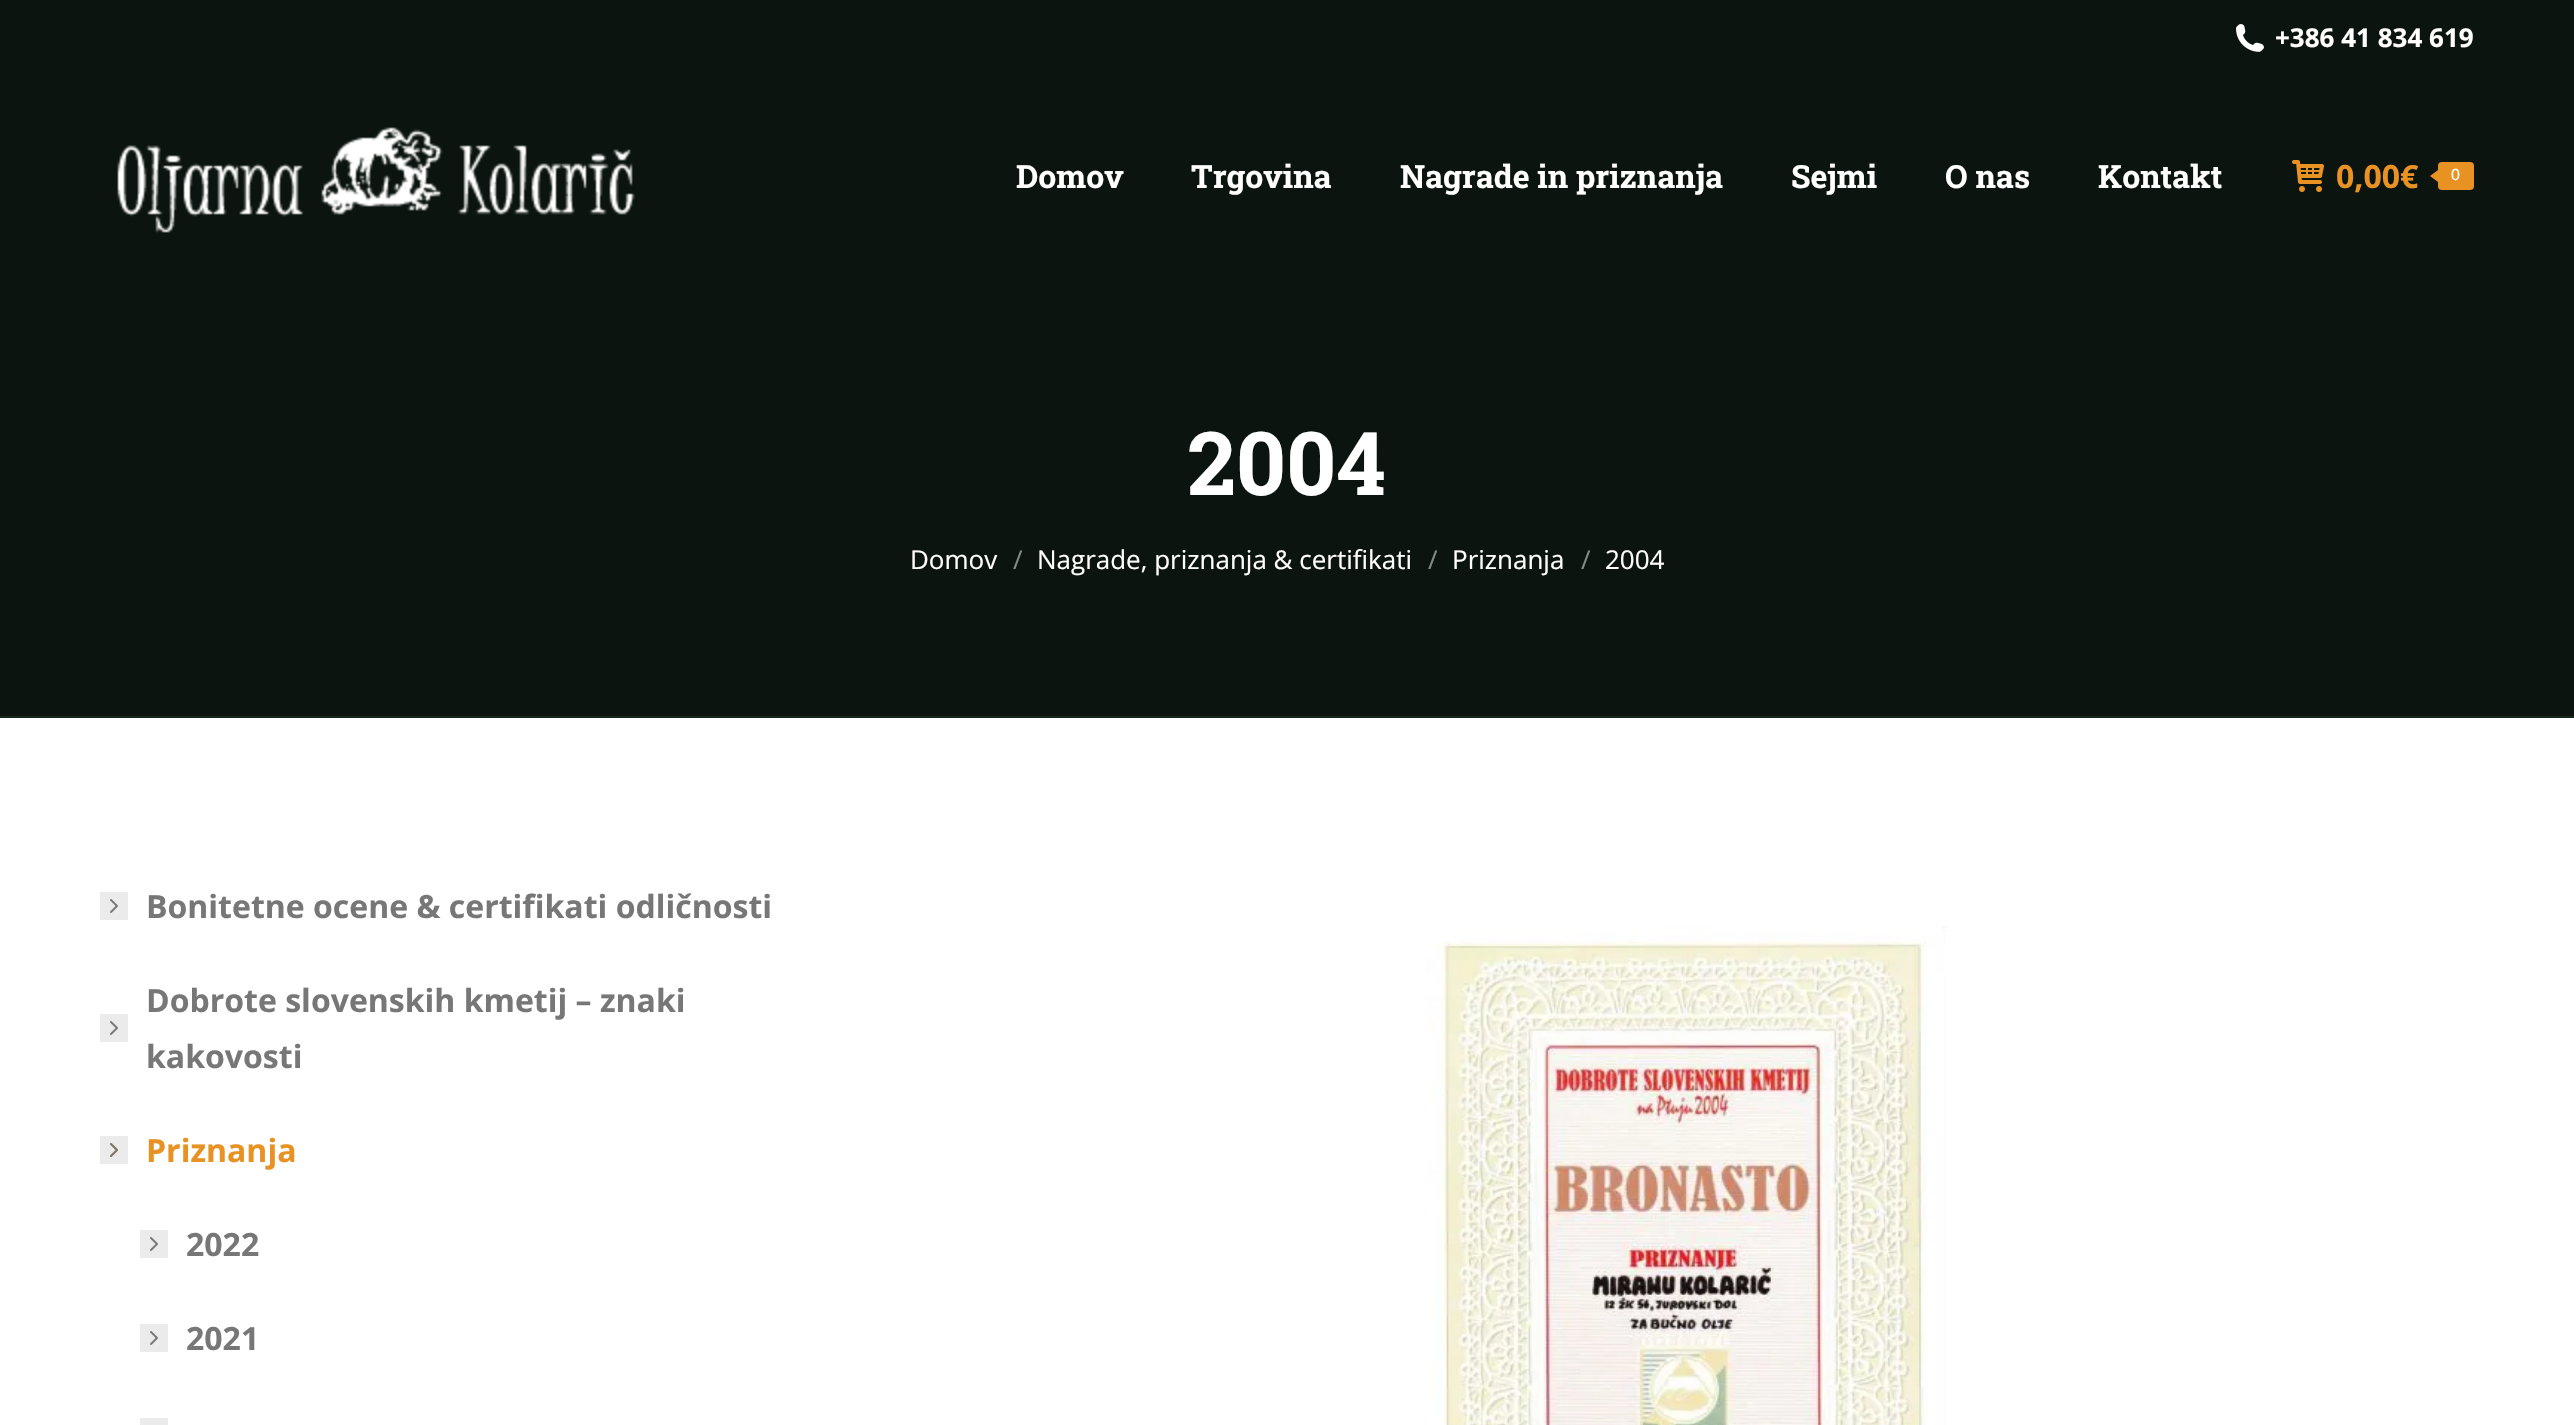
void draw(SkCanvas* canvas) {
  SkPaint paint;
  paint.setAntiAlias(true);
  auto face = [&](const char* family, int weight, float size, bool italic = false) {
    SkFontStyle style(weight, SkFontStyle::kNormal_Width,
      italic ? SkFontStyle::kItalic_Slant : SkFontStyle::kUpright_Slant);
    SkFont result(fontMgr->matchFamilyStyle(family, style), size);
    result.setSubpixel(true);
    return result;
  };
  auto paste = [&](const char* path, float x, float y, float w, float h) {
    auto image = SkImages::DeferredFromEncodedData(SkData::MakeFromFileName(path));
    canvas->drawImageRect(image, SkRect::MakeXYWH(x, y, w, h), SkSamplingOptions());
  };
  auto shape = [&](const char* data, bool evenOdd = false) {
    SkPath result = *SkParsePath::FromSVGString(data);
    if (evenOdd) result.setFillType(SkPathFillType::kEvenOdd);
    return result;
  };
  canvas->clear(0xffffffff);
  paint.setColor(0xff0b140e);
  canvas->drawRect(SkRect::MakeXYWH(0, 0, 2574, 716), paint);
  paste("img/1.png", 2236, 24, 28, 28);
  paste("img/2.png", 117, 127, 518, 106);
  paste("img/3.png", 2292, 160, 32, 32);
  paint.setColor(0xffe89224);
  canvas->drawRoundRect(SkRect::MakeXYWH(2438, 162, 36, 28), 4, 4, paint);
  canvas->drawPath(shape("M2438 170V182L2430 176Z"), paint);
  paint.setColor(0xff16261d);
  canvas->drawRect(SkRect::MakeXYWH(0, 716, 2574, 2), paint);
  paint.setColor(0xffebebeb);
  canvas->drawRect(SkRect::MakeXYWH(100, 892, 28, 28), paint);
  paste("img/4.png", 110, 899, 8, 14);
  canvas->drawRect(SkRect::MakeXYWH(100, 1014, 28, 28), paint);
  paste("img/4.png", 110, 1021, 8, 14);
  canvas->drawRect(SkRect::MakeXYWH(100, 1136, 28, 28), paint);
  paste("img/5.png", 110, 1143, 8, 14);
  paste("img/6.png", 110, 1143, 8, 14);
  canvas->drawRect(SkRect::MakeXYWH(140, 1230, 28, 28), paint);
  paste("img/4.png", 150, 1237, 8, 14);
  canvas->drawRect(SkRect::MakeXYWH(140, 1324, 28, 28), paint);
  paste("img/4.png", 150, 1331, 8, 14);
  canvas->drawRect(SkRect::MakeXYWH(140, 1418, 28, 7), paint);
  paste("img/7.png", 1426, 926, 520, 499);
  auto f0 = face("Open Sans", 700, 26);
  paint.setColor(0xffffffff);
  canvas->drawString("+386 41 834 619", 2275, 47, f0, paint);
  auto f1 = face("Roboto Slab", 700, 32);
  {
    const struct { const char* s; float x, y; } items[] = {
      {"Domov", 1016, 188},
      {"Trgovina", 1191, 188},
      {"Nagrade in priznanja", 1400, 188},
      {"Sejmi", 1791, 188},
      {"O nas", 1945, 188},
      {"Kontakt", 2098, 188},
    };
    for (auto [s, x, y] : items) {
      canvas->drawString(s, x, y, f1, paint);
    }
  }
  auto f2 = face("Open Sans", 700, 32);
  paint.setColor(0xffe89224);
  canvas->drawString("0,00€", 2336, 188, f2, paint);
  auto f3 = face("Liberation Sans", 400, 16);
  paint.setColor(0xffffffff);
  canvas->drawString("0", 2451, 180, f3, paint);
  auto f4 = face("Roboto Slab", 700, 88);
  canvas->drawString("2004", 1187, 495, f4, paint);
  auto f5 = face("Open Sans", 400, 26);
  canvas->drawString("Domov", 910, 569, f5, paint);
  paint.setColor(0xff858a87);
  canvas->drawString("/", 1013, 569, f5, paint);
  paint.setColor(0xffffffff);
  canvas->drawString("Nagrade, priznanja & certifikati", 1037, 569, f5, paint);
  paint.setColor(0xff858a87);
  canvas->drawString("/", 1428, 569, f5, paint);
  paint.setColor(0xffffffff);
  canvas->drawString("Priznanja", 1452, 569, f5, paint);
  paint.setColor(0xff858a87);
  canvas->drawString("/", 1581, 569, f5, paint);
  paint.setColor(0xffffffff);
  canvas->drawString("2004", 1605, 569, f5, paint);
  paint.setColor(0xff777777);
  {
    const struct { const char* s; float x, y; } items[] = {
      {"Bonitetne ocene & certifikati odličnosti", 146, 918},
      {"Dobrote slovenskih kmetij – znaki", 146, 1012},
      {"kakovosti", 146, 1068},
    };
    for (auto [s, x, y] : items) {
      canvas->drawString(s, x, y, f2, paint);
    }
  }
  paint.setColor(0xffe89224);
  canvas->drawString("Priznanja", 146, 1162, f2, paint);
  paint.setColor(0xff777777);
  canvas->drawString("2022", 186, 1256, f2, paint);
  canvas->drawString("2021", 186, 1350, f2, paint);
}
